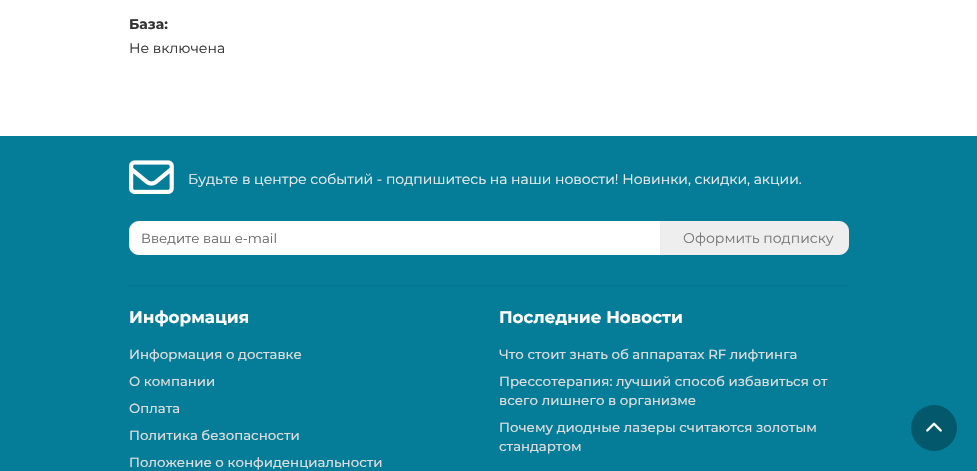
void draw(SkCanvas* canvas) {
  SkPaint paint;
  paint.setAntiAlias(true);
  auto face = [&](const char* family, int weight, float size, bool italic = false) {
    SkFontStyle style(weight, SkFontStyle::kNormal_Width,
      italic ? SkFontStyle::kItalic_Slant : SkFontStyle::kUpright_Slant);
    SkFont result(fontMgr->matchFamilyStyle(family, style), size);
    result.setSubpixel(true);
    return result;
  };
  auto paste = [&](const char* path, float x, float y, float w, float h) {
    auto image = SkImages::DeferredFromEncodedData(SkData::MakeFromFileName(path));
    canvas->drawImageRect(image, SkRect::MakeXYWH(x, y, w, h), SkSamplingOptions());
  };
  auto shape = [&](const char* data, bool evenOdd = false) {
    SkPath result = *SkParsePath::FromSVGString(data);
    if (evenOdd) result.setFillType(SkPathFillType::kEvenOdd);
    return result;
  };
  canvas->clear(0xffffffff);
  paint.setColor(0xff057d99);
  canvas->drawRect(SkRect::MakeXYWH(0, 136, 977, 335), paint);
  paste("img/1.png", 129, 160, 45, 34);
  paint.setColor(0xffffffff);
  canvas->drawPath(shape("M139 221H660V255H139C133.5 255 129 250.5 129 245V231C129 225.5 133.5 221 139 221Z"), paint);
  paint.setColor(0xffeeeeee);
  canvas->drawPath(shape("M660 221H839C844.5 221 849 225.5 849 231V245C849 250.5 844.5 255 839 255H660Z"), paint);
  paint.setColor(0xff057791);
  canvas->drawRect(SkRect::MakeXYWH(129, 285, 720, 1), paint);
  paint.setColor(0xff04586b);
  canvas->drawCircle(934, 428, 23, paint);
  paste("img/2.png", 926, 422, 16, 10);
  auto f0 = face("Montserrat", 700, 14);
  paint.setColor(0xff333333);
  canvas->drawString("База:", 129, 29, f0, paint);
  auto f1 = face("Montserrat", 400, 14);
  canvas->drawString("Не включена", 129, 53, f1, paint);
  paint.setColor(0xffeeeeee);
  canvas->drawString("Будьте в центре событий - подпишитесь на наши новости! Новинки, скидки, акции.", 188, 184, f1, paint);
  auto f2 = face("Montserrat", 400, 13.3f);
  paint.setColor(0xff666666);
  canvas->drawString("Введите ваш e-mail", 141, 243, f2, paint);
  paint.setColor(0xff777777);
  canvas->drawString("Оформить подписку", 683, 243, f1, paint);
  auto f3 = face("Montserrat", 700, 16.75f);
  paint.setColor(0xffffffff);
  canvas->drawString("Информация", 129, 323, f3, paint);
  auto f4 = face("Montserrat", 500, 13.3f);
  paint.setColor(0xffdddddd);
  {
    const struct { const char* s; float x, y; } items[] = {
      {"Информация о доставке", 129, 359},
      {"О компании", 129, 386},
      {"Оплата", 129, 413},
      {"Политика безопасности", 129, 440},
      {"Положение о конфиденциальности", 129, 467},
    };
    for (auto [s, x, y] : items) {
      canvas->drawString(s, x, y, f4, paint);
    }
  }
  paint.setColor(0xffffffff);
  canvas->drawString("Последние Новости", 499, 323, f3, paint);
  paint.setColor(0xffdddddd);
  {
    const struct { const char* s; float x, y; } items[] = {
      {"Что стоит знать об аппаратах RF лифтинга", 499, 359},
      {"Прессотерапия: лучший способ избавиться от", 499, 386},
      {"всего лишнего в организме", 499, 405},
      {"Почему диодные лазеры считаются золотым", 499, 432},
      {"стандартом", 499, 451},
    };
    for (auto [s, x, y] : items) {
      canvas->drawString(s, x, y, f4, paint);
    }
  }
}
